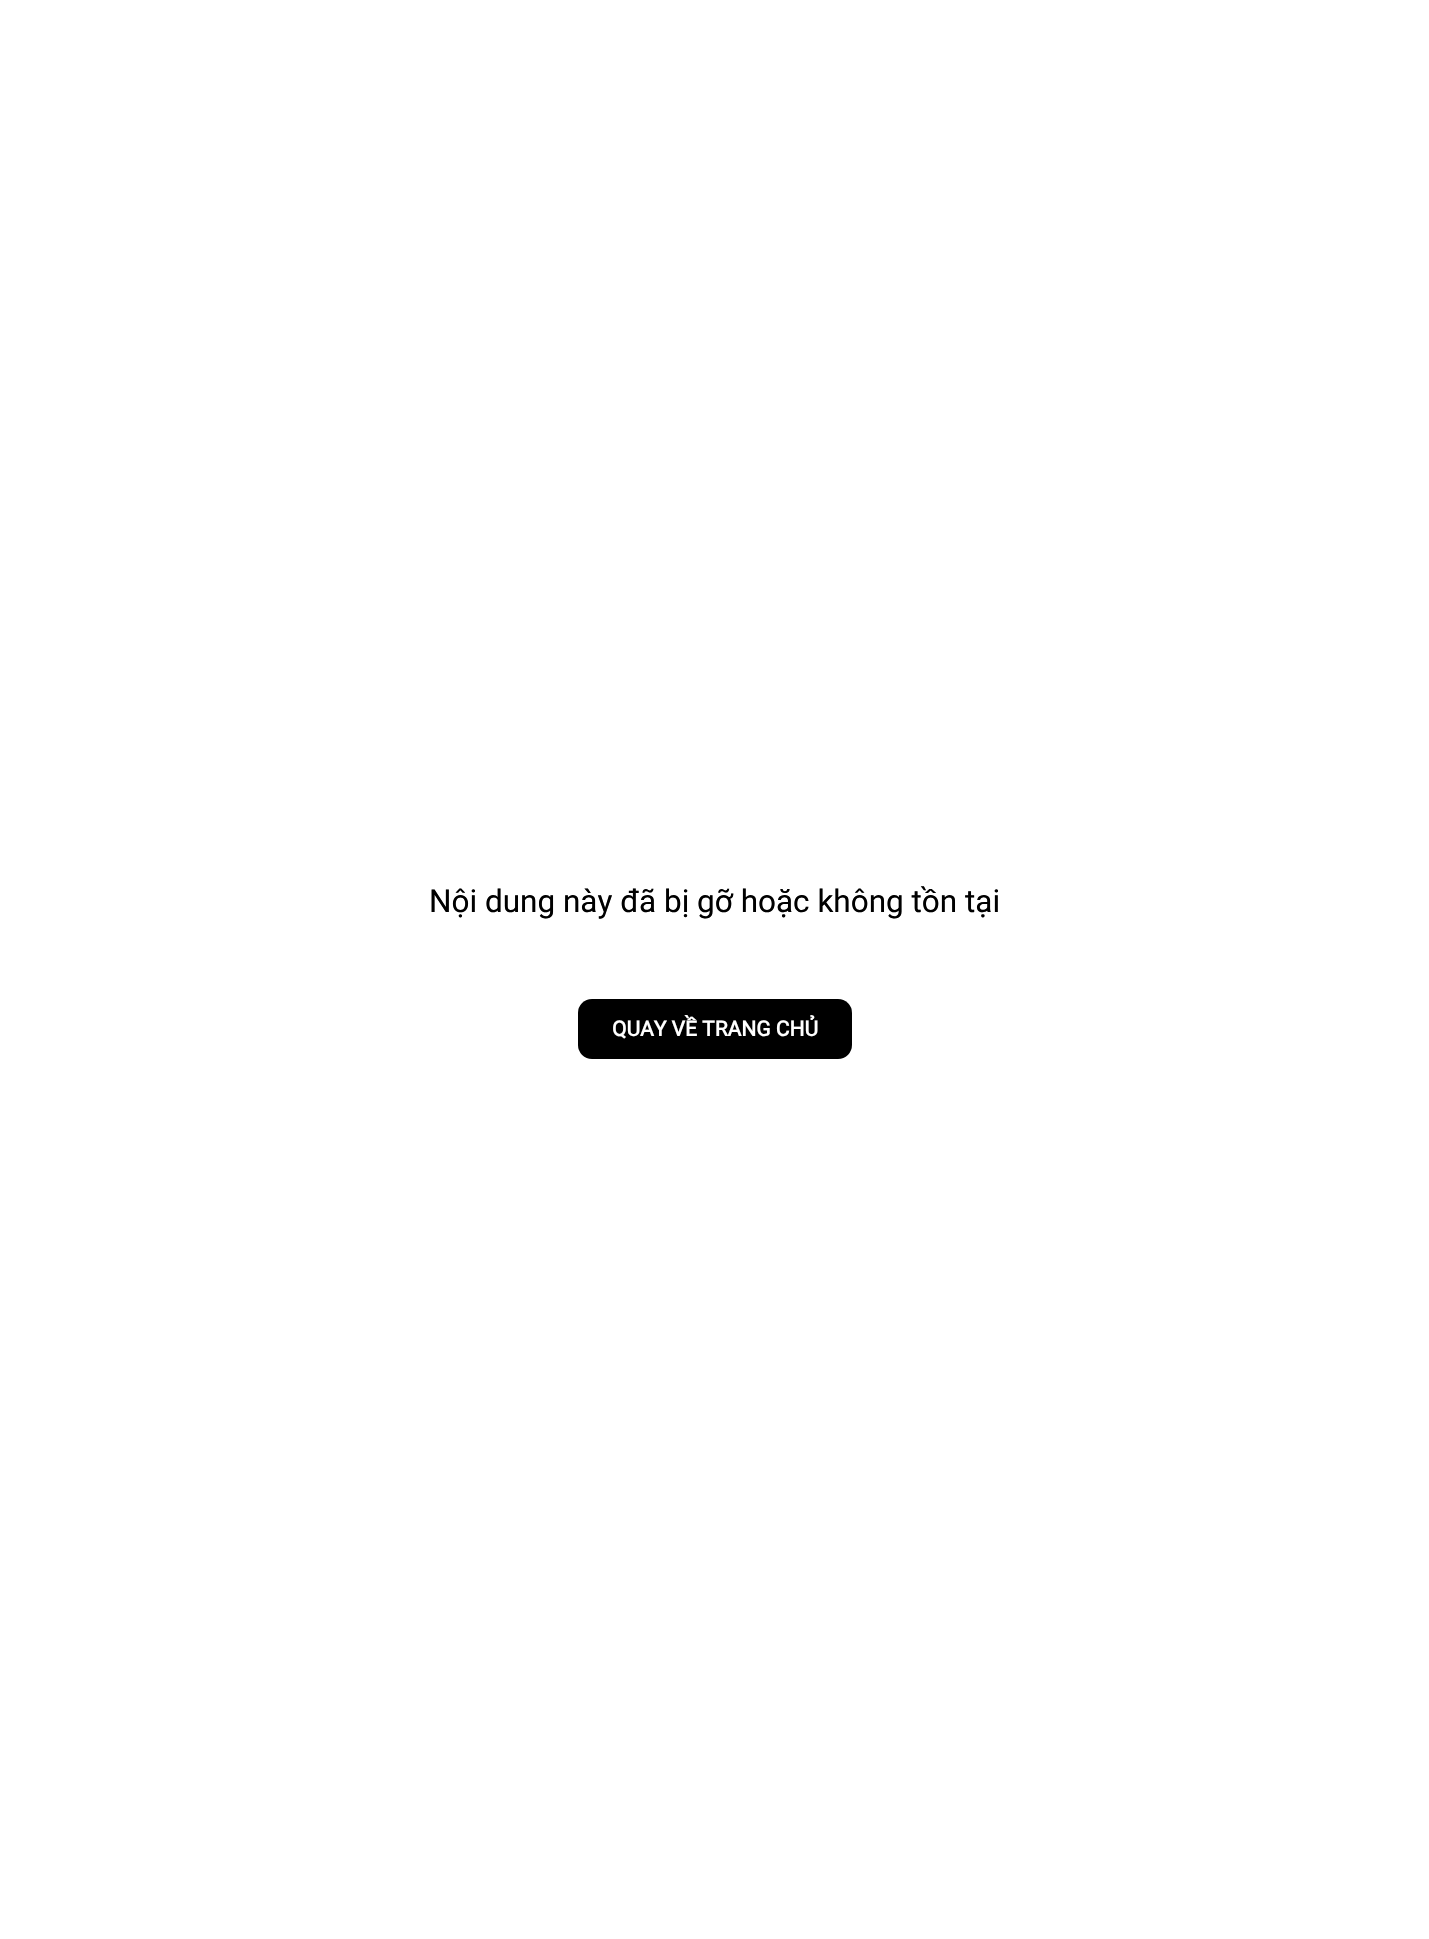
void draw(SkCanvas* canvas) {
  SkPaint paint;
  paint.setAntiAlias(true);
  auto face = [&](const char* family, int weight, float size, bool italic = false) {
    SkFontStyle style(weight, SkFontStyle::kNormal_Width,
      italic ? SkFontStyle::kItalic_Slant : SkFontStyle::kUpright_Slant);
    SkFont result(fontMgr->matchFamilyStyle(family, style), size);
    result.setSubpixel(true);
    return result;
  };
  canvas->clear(0xffffffff);
  paint.setColor(0xff000000);
  canvas->drawRoundRect(SkRect::MakeXYWH(578, 999, 274, 60), 14, 14, paint);
  auto f0 = face("Roboto", 400, 31.5f);
  canvas->drawString("Nội dung này đã bị gỡ hoặc không tồn tại", 429, 912, f0, paint);
  auto f1 = face("Roboto", 700, 21);
  paint.setColor(0xffffffff);
  canvas->drawString("QUAY VỀ TRANG CHỦ", 612, 1036, f1, paint);
}
